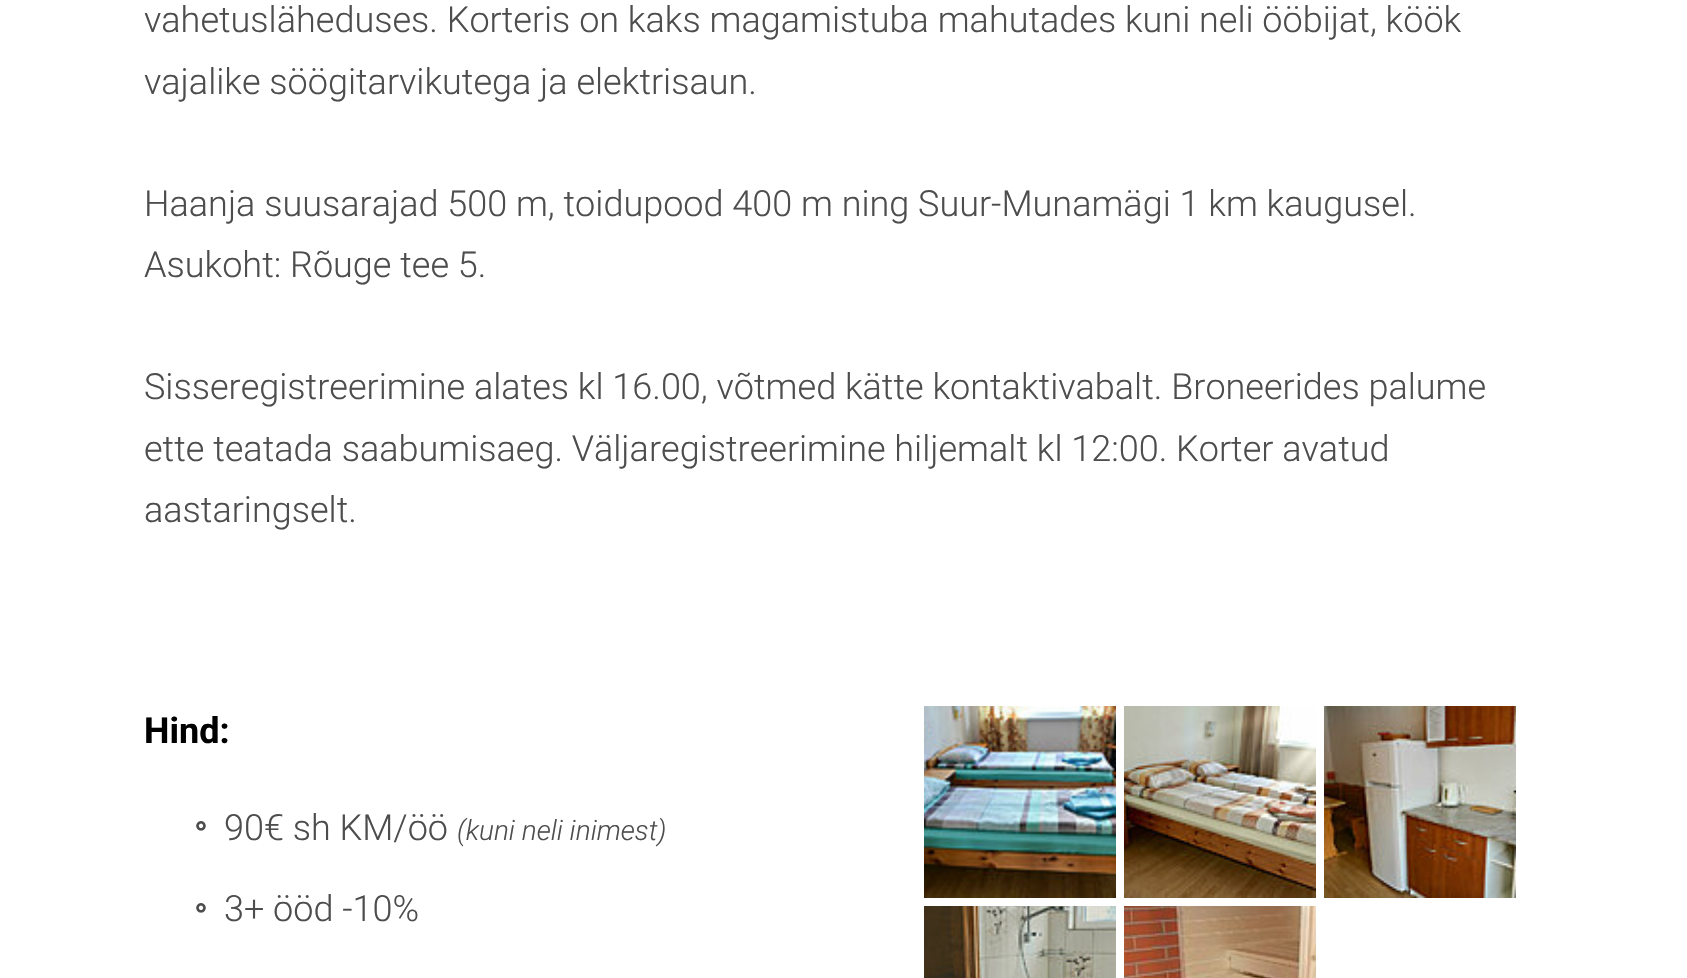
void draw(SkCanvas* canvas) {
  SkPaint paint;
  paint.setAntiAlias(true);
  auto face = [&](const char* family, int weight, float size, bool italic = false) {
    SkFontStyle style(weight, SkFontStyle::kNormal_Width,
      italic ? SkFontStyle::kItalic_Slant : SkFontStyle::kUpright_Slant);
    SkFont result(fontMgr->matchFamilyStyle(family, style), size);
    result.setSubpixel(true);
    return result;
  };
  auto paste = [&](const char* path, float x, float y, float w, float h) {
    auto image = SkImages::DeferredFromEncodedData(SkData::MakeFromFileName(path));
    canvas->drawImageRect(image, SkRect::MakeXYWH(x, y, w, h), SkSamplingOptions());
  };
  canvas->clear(0xffffffff);
  paste("img/1.png", 924, 706, 192, 192);
  paste("img/2.png", 1124, 706, 192, 192);
  paste("img/3.png", 1324, 706, 192, 192);
  paste("img/4.png", 924, 906, 192, 72);
  paste("img/5.png", 1124, 906, 192, 72);
  auto f0 = face("Roboto", 300, 36);
  paint.setColor(0xff4d4d4d);
  {
    const struct { const char* s; float x, y; } items[] = {
      {"vahetusläheduses. Korteris on kaks magamistuba mahutades kuni neli ööbijat, köök", 144, 32},
      {"vajalike söögitarvikutega ja elektrisaun.", 144, 94},
      {"Haanja suusarajad 500 m, toidupood 400 m ning Suur-Munamägi 1 km kaugusel.", 144, 216},
      {"Asukoht: Rõuge tee 5.", 144, 277},
      {"Sisseregistreerimine alates kl 16.00, võtmed kätte kontaktivabalt. Broneerides palume", 144, 399},
      {"ette teatada saabumisaeg. Väljaregistreerimine hiljemalt kl 12:00. Korter avatud", 144, 461},
      {"aastaringselt.", 144, 522},
    };
    for (auto [s, x, y] : items) {
      canvas->drawString(s, x, y, f0, paint);
    }
  }
  auto f1 = face("Roboto", 700, 36);
  paint.setColor(0xff000000);
  canvas->drawString("Hind:", 144, 743, f1, paint);
  paint.setColor(0xff4d4d4d);
  canvas->drawString("°", 194, 847, f1, paint);
  canvas->drawString("90€ sh KM/öö", 224, 840, f0, paint);
  auto f2 = face("Roboto", 300, 28, true);
  canvas->drawString("(kuni neli inimest)", 457, 840, f2, paint);
  canvas->drawString("°", 194, 929, f1, paint);
  canvas->drawString("3+ ööd -10%", 224, 921, f0, paint);
}
